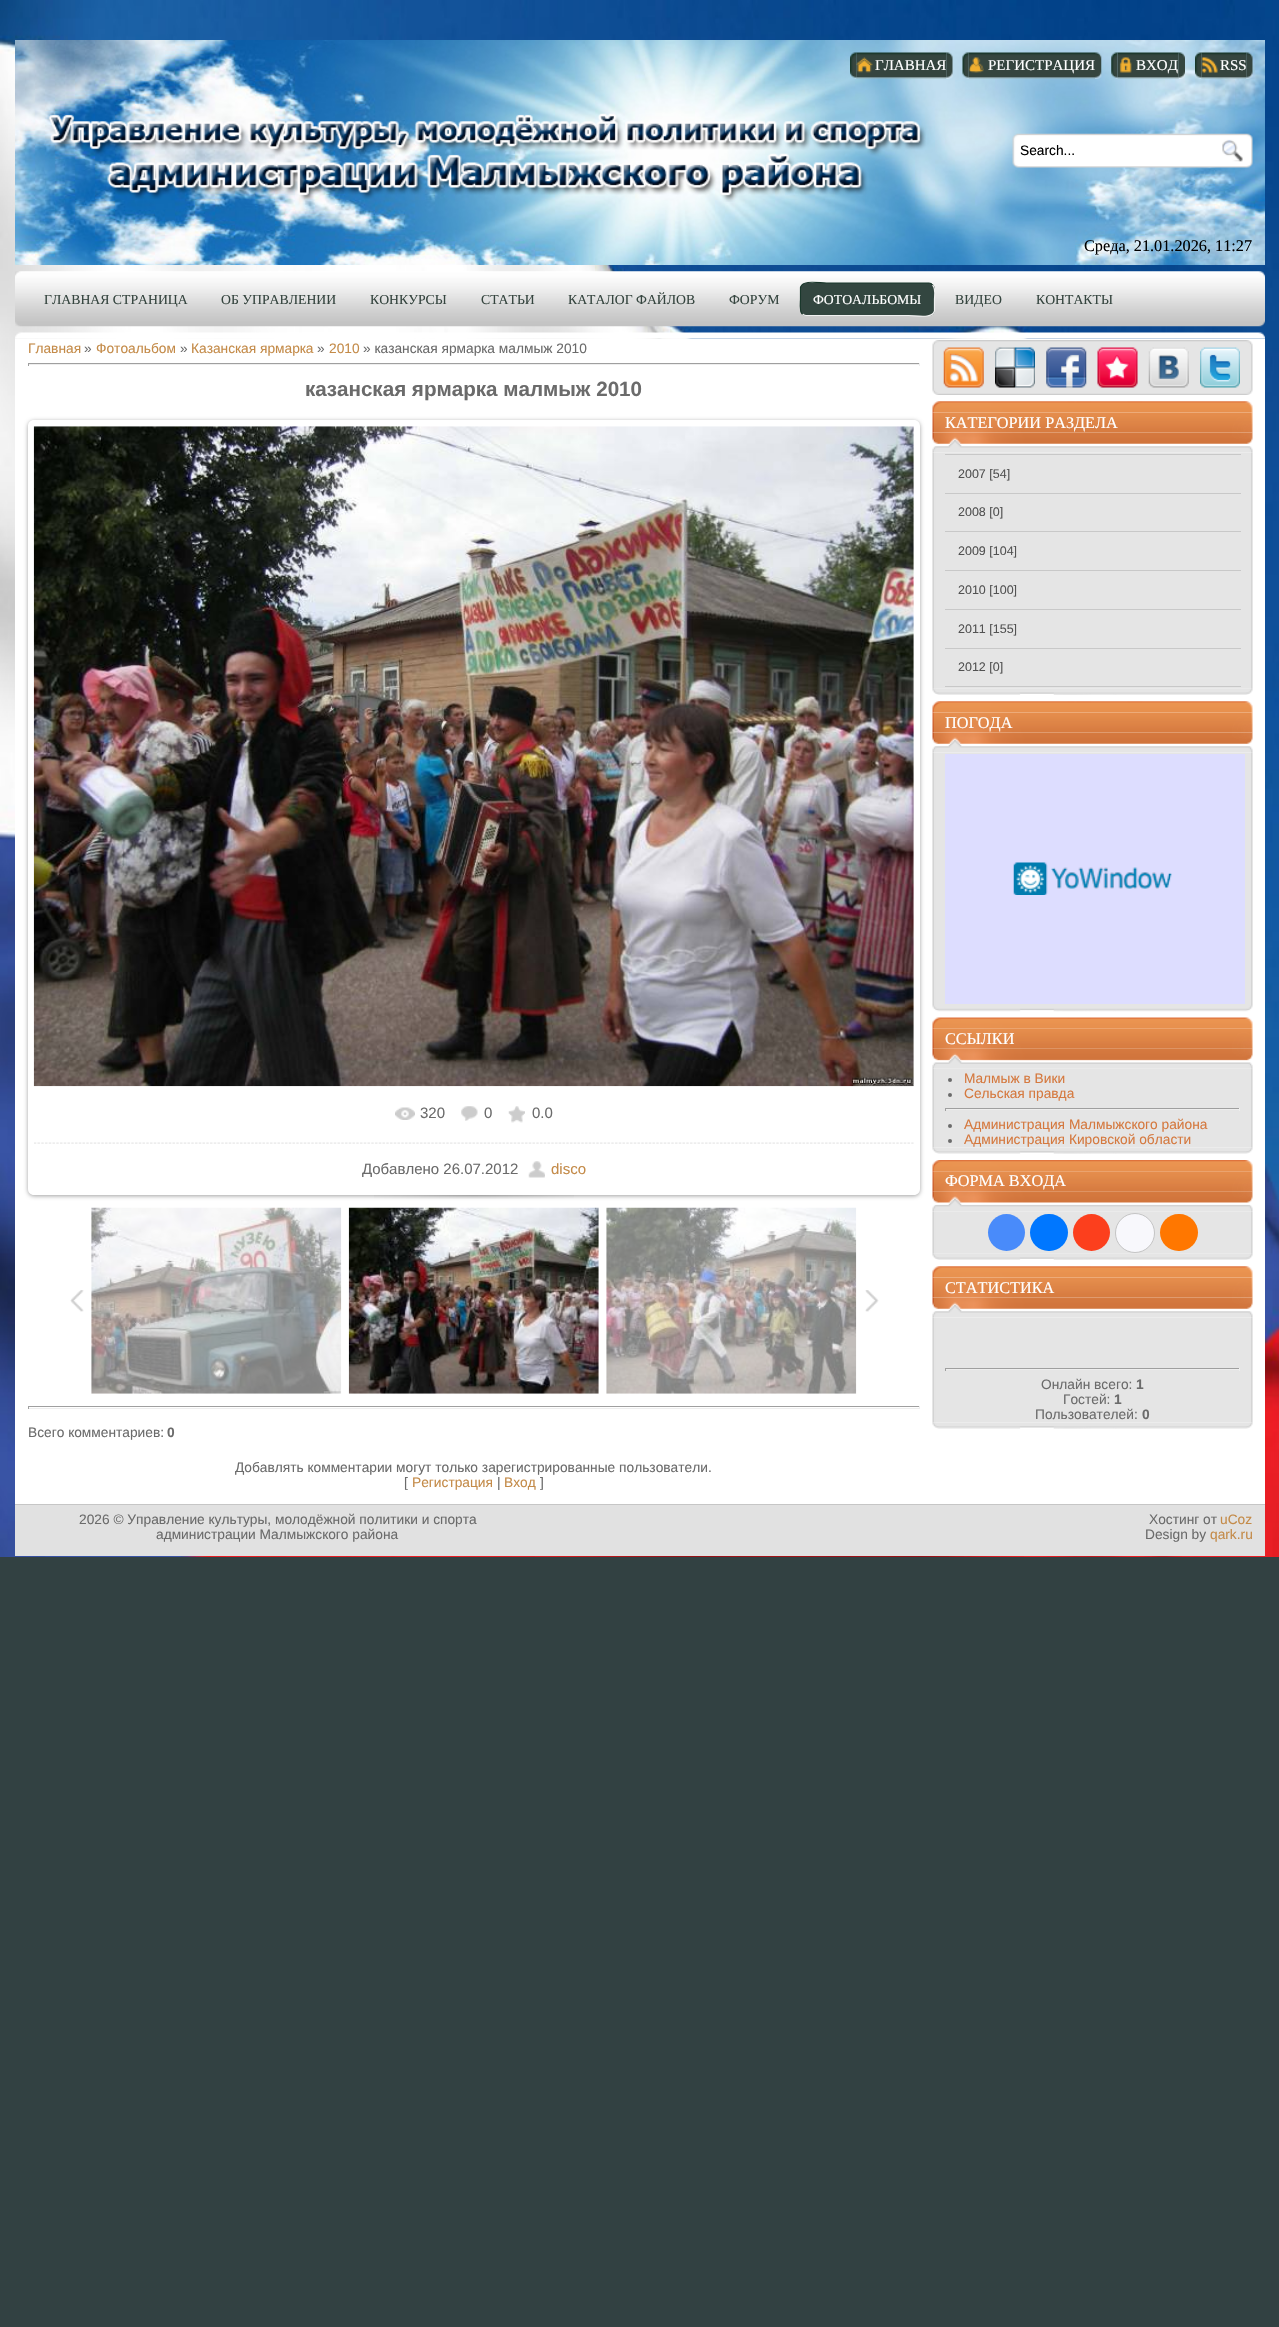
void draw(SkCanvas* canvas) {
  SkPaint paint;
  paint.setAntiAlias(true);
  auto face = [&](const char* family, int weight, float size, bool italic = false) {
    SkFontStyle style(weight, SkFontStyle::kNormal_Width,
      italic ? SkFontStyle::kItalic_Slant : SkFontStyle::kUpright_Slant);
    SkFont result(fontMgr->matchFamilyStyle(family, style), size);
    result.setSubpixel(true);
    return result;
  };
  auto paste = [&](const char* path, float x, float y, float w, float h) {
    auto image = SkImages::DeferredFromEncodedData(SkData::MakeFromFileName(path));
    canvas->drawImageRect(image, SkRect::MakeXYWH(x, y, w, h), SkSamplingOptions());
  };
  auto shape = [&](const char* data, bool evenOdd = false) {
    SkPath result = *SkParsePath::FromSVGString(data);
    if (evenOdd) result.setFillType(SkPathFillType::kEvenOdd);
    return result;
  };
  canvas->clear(0xff324142);
  paste("img/1.png", 0, 0, 1279, 1557);
  paste("img/2.png", 15, 40, 1250, 225);
  paste("img/6.png", 946, 52, 7, 27);
  paste("img/4.png", 856, 52, 91, 27);
  paste("img/5.png", 856, 57, 17, 16);
  paste("img/3.png", 850, 52, 7, 27);
  paste("img/8.png", 968, 52, 127, 27);
  paste("img/9.png", 968, 57, 16, 16);
  paste("img/7.png", 962, 52, 7, 27);
  paste("img/10.png", 1095, 52, 7, 27);
  paste("img/14.png", 1178, 52, 7, 27);
  paste("img/12.png", 1117, 52, 62, 27);
  paste("img/11.png", 1111, 52, 7, 27);
  paste("img/13.png", 1119, 57, 13, 16);
  paste("img/18.png", 1246, 52, 7, 27);
  paste("img/16.png", 1201, 52, 46, 27);
  paste("img/17.png", 1201, 57, 17, 16);
  paste("img/15.png", 1195, 52, 7, 27);
  paste("img/19.png", 48, 113, 878, 89);
  paste("img/20.png", 1012, 133, 241, 35);
  paste("img/21.png", 15, 271, 1250, 56);
  paint.setColor(0xff334640);
  canvas->drawRoundRect(SkRect::MakeXYWH(800, 283, 135, 33), 6, 6, paint);
  paint.setStroke(true);
  paint.setStrokeWidth(1.2f);
  paint.setColor(0xfff1f1f1);
  canvas->drawPath(shape("M932.5 285C936 288 934.5 295.5 934.5 299.5V311C932.5 319 916.5 315.5 908.5 315.5H806C805 315.5 803.5 315 802.5 314"), paint);
  paint.setColor(0xff19372b);
  canvas->drawPath(shape("M802.5 314C799 311 800.5 303 800.5 299.5V287.5C802.5 279.5 818.5 283 826.5 283H929C930 283 931.5 283.5 932.5 285"), paint);
  paste("img/22.png", 15, 332, 1250, 7);
  paint.setStroke(false);
  {
    const struct { float x, y, w, h; SkColor color; } items[] = {
      {15, 339, 1250, 1165, 0xffffffff},
      {28, 363, 892, 1, 0xff9f9f9f},
      {919, 363, 1, 3, 0xffeeeeee},
      {28, 364, 892, 1, 0xffeeeeee},
      {28, 363, 1, 3, 0xff9f9f9f},
    };
    for (auto [x, y, w, h, color] : items) {
      paint.setColor(color);
      canvas->drawRect(SkRect::MakeXYWH(x, y, w, h), paint);
    }
  }
  canvas->save();
  canvas->clipPath(shape("M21 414H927V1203H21ZM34 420H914C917.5 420 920 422.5 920 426V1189C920 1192.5 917.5 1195 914 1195H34C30.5 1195 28 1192.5 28 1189V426C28 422.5 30.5 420 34 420Z", true), true);
  paint.setColor(0x5e000000);
  paint.setMaskFilter(SkMaskFilter::MakeBlur(kNormal_SkBlurStyle, 2));
  canvas->drawRoundRect(SkRect::MakeXYWH(28, 421, 892, 775), 6, 6, paint);
  paint.setMaskFilter(nullptr);
  canvas->restore();
  paste("img/23.png", 33, 426, 881, 661);
  paste("img/24.png", 395, 1107, 20, 13);
  paste("img/25.png", 461, 1106, 17, 15);
  paste("img/26.png", 508, 1106, 17, 17);
  paste("img/27.png", 34, 1142, 880, 2);
  paste("img/28.png", 528, 1161, 17, 17);
  paste("img/29.png", 374, 1195, 200, 4);
  paste("img/30.png", 70, 1290, 14, 22);
  paste("img/31.png", 91, 1207, 251, 187);
  paste("img/32.png", 348, 1207, 251, 187);
  paste("img/33.png", 606, 1207, 251, 187);
  paste("img/34.png", 865, 1290, 14, 22);
  {
    const struct { float x, y, w, h; SkColor color; } items[] = {
      {28, 1406, 892, 1, 0xff9f9f9f},
      {919, 1406, 1, 3, 0xffeeeeee},
      {28, 1408, 892, 1, 0xffeeeeee},
      {28, 1406, 1, 3, 0xff9f9f9f},
    };
    for (auto [x, y, w, h, color] : items) {
      paint.setColor(color);
      canvas->drawRect(SkRect::MakeXYWH(x, y, w, h), paint);
    }
  }
  paste("img/35.png", 932, 340, 321, 55);
  paste("img/36.png", 943, 347, 41, 41);
  paste("img/37.png", 995, 347, 40, 41);
  paste("img/38.png", 1046, 347, 41, 41);
  paste("img/39.png", 1097, 347, 41, 41);
  paste("img/40.png", 1148, 347, 41, 41);
  paste("img/41.png", 1200, 347, 40, 41);
  paste("img/43.png", 932, 412, 321, 21);
  paste("img/42.png", 932, 401, 321, 12);
  paste("img/45.png", 932, 452, 321, 237);
  paste("img/44.png", 932, 432, 321, 21);
  {
    const struct { float x, y, w, h; SkColor color; } items[] = {
      {945, 454, 296, 1, 0xffc8c8c8},
      {945, 493, 296, 1, 0xffc8c8c8},
      {945, 531, 296, 1, 0xffc8c8c8},
      {945, 570, 296, 1, 0xffc8c8c8},
      {945, 609, 296, 1, 0xffc8c8c8},
      {945, 648, 296, 1, 0xffc8c8c8},
      {945, 686, 296, 1, 0xffc8c8c8},
    };
    for (auto [x, y, w, h, color] : items) {
      paint.setColor(color);
      canvas->drawRect(SkRect::MakeXYWH(x, y, w, h), paint);
    }
  }
  paste("img/46.png", 932, 688, 321, 7);
  paste("img/43.png", 932, 712, 321, 21);
  paste("img/42.png", 932, 701, 321, 12);
  paste("img/47.png", 932, 752, 321, 253);
  paste("img/44.png", 932, 732, 321, 21);
  paint.setColor(0xffddddff);
  canvas->drawRect(SkRect::MakeXYWH(945, 754, 300, 250), paint);
  paste("img/48.png", 1013, 862, 159, 33);
  paste("img/49.png", 932, 1005, 321, 7);
  paste("img/51.png", 932, 1028, 321, 21);
  paste("img/50.png", 932, 1017, 321, 12);
  paste("img/53.png", 932, 1068, 321, 80);
  paste("img/52.png", 932, 1048, 321, 21);
  paint.setColor(0xff6b6b6b);
  canvas->drawCircle(950, 1080, 2, paint);
  canvas->drawCircle(950, 1095, 2, paint);
  {
    const struct { float x, y, w, h; SkColor color; } items[] = {
      {945, 1108, 295, 1, 0xff9f9f9f},
      {1239, 1108, 1, 3, 0xffeeeeee},
      {945, 1109, 295, 1, 0xffeeeeee},
      {945, 1108, 1, 3, 0xff9f9f9f},
    };
    for (auto [x, y, w, h, color] : items) {
      paint.setColor(color);
      canvas->drawRect(SkRect::MakeXYWH(x, y, w, h), paint);
    }
  }
  paint.setColor(0xff6b6b6b);
  canvas->drawCircle(950, 1126, 2, paint);
  canvas->drawCircle(950, 1141, 2, paint);
  paste("img/54.png", 932, 1147, 321, 7);
  paste("img/56.png", 932, 1171, 321, 21);
  paste("img/55.png", 932, 1160, 321, 12);
  paste("img/57.png", 932, 1191, 321, 20);
  paste("img/58.png", 932, 1211, 321, 43);
  paint.setColor(0xff498bfa);
  canvas->drawCircle(1006.5f, 1232.5f, 18.5f, paint);
  paint.setColor(0xff0077ff);
  canvas->drawRoundRect(SkRect::MakeXYWH(1030, 1214, 38, 37), 18.5f, 18.5f, paint);
  paint.setColor(0xfffc3f1d);
  canvas->drawCircle(1091.5f, 1232.5f, 18.5f, paint);
  paint.setColor(0xfff8f8fc);
  canvas->drawCircle(1135, 1233, 19.5f, paint);
  paint.setStroke(true);
  paint.setStrokeWidth(1);
  paint.setColor(0xffc4c4c4);
  canvas->drawCircle(1135, 1233, 19.5f, paint);
  paint.setStroke(false);
  paint.setColor(0xffff7700);
  canvas->drawRoundRect(SkRect::MakeXYWH(1160, 1214, 38, 37), 18.5f, 18.5f, paint);
  paste("img/46.png", 932, 1253, 321, 7);
  paste("img/43.png", 932, 1277, 321, 21);
  paste("img/42.png", 932, 1266, 321, 12);
  paste("img/59.png", 932, 1317, 321, 106);
  paste("img/44.png", 932, 1297, 321, 21);
  {
    const struct { float x, y, w, h; SkColor color; } items[] = {
      {945, 1368, 295, 1, 0xff9f9f9f},
      {1239, 1368, 1, 3, 0xffeeeeee},
      {945, 1369, 295, 1, 0xffeeeeee},
      {945, 1368, 1, 3, 0xff9f9f9f},
    };
    for (auto [x, y, w, h, color] : items) {
      paint.setColor(color);
      canvas->drawRect(SkRect::MakeXYWH(x, y, w, h), paint);
    }
  }
  paste("img/54.png", 932, 1422, 321, 7);
  paint.setColor(0xffe1e1e1);
  canvas->drawRect(SkRect::MakeXYWH(15, 1505, 1250, 51), paint);
  paint.setColor(0xffc6c6c6);
  canvas->drawRect(SkRect::MakeXYWH(15, 1504, 1250, 1), paint);
  auto f0 = face("Liberation Serif", 400, 15);
  paint.setColor(0xffffffff);
  {
    const struct { const char* s; float x, y; } items[] = {
      {"ГЛАВНАЯ", 875, 70},
      {"РЕГИСТРАЦИЯ", 988, 70},
      {"ВХОД", 1136, 70},
      {"RSS", 1220, 70},
    };
    for (auto [s, x, y] : items) {
      canvas->drawString(s, x, y, f0, paint);
    }
  }
  auto f1 = face("Liberation Sans", 400, 13.75f);
  paint.setColor(0xff000000);
  canvas->drawString("Search...", 1020, 155, f1, paint);
  auto f2 = face("Liberation Serif", 400, 16.25f);
  canvas->drawString("Среда, 21.01.2026, 11:27", 1084, 251, f2, paint);
  auto f3 = face("Liberation Serif", 400, 13.75f);
  paint.setColor(0xff35453f);
  {
    const struct { const char* s; float x, y; } items[] = {
      {"ГЛАВНАЯ СТРАНИЦА", 44, 304},
      {"ОБ УПРАВЛЕНИИ", 221, 304},
      {"КОНКУРСЫ", 370, 304},
      {"СТАТЬИ", 481, 304},
      {"КАТАЛОГ ФАЙЛОВ", 568, 304},
      {"ФОРУМ", 729, 304},
    };
    for (auto [s, x, y] : items) {
      canvas->drawString(s, x, y, f3, paint);
    }
  }
  paint.setColor(0xffffffff);
  canvas->drawString("ФОТОАЛЬБОМЫ", 813, 304, f3, paint);
  paint.setColor(0xff35453f);
  canvas->drawString("ВИДЕО", 955, 304, f3, paint);
  canvas->drawString("КОНТАКТЫ", 1036, 304, f3, paint);
  paint.setColor(0xffc48b49);
  canvas->drawString("Главная", 28, 353, f1, paint);
  paint.setColor(0xff6b6b6b);
  canvas->drawString("»", 84, 353, f1, paint);
  paint.setColor(0xffc48b49);
  canvas->drawString("Фотоальбом", 96, 353, f1, paint);
  paint.setColor(0xff6b6b6b);
  canvas->drawString("»", 180, 353, f1, paint);
  paint.setColor(0xffc48b49);
  canvas->drawString("Казанская ярмарка", 191, 353, f1, paint);
  paint.setColor(0xff6b6b6b);
  canvas->drawString("»", 317, 353, f1, paint);
  paint.setColor(0xffc48b49);
  canvas->drawString("2010", 329, 353, f1, paint);
  paint.setColor(0xff6b6b6b);
  canvas->drawString("» казанcкая ярмарка малмыж 2010", 363, 353, f1, paint);
  auto f4 = face("Liberation Sans", 700, 20.6f);
  canvas->drawString("казанcкая ярмарка малмыж 2010", 305, 396, f4, paint);
  auto f5 = face("Liberation Sans", 400, 15);
  {
    const struct { const char* s; float x, y; } items[] = {
      {"320", 420, 1118},
      {"0", 484, 1118},
      {"0.0", 532, 1118},
      {"Добавлено 26.07.2012", 362, 1174},
    };
    for (auto [s, x, y] : items) {
      canvas->drawString(s, x, y, f5, paint);
    }
  }
  paint.setColor(0xffc48b49);
  canvas->drawString("disco", 551, 1174, f5, paint);
  paint.setColor(0xff6b6b6b);
  canvas->drawString("Всего комментариев:", 28, 1437, f1, paint);
  auto f6 = face("Liberation Sans", 700, 13.75f);
  canvas->drawString("0", 167, 1437, f6, paint);
  canvas->drawString("Добавлять комментарии могут только зарегистрированные пользователи.", 235, 1472, f1, paint);
  canvas->drawString("[", 404, 1487, f1, paint);
  paint.setColor(0xffc48b49);
  canvas->drawString("Регистрация", 412, 1487, f1, paint);
  paint.setColor(0xff6b6b6b);
  canvas->drawString("|", 497, 1487, f1, paint);
  paint.setColor(0xffc48b49);
  canvas->drawString("Вход", 504, 1487, f1, paint);
  paint.setColor(0xff6b6b6b);
  canvas->drawString("]", 540, 1487, f1, paint);
  paint.setColor(0xffffffff);
  canvas->drawString("КАТЕГОРИИ РАЗДЕЛА", 945, 428, f2, paint);
  auto f7 = face("Liberation Sans", 400, 12.5f);
  paint.setColor(0xff525252);
  {
    const struct { const char* s; float x, y; } items[] = {
      {"2007 [54]", 958, 478},
      {"2008 [0]", 958, 516},
      {"2009 [104]", 958, 555},
      {"2010 [100]", 958, 594},
      {"2011 [155]", 958, 633},
      {"2012 [0]", 958, 671},
    };
    for (auto [s, x, y] : items) {
      canvas->drawString(s, x, y, f7, paint);
    }
  }
  paint.setColor(0xffffffff);
  canvas->drawString("ПОГОДА", 945, 728, f2, paint);
  canvas->drawString("ССЫЛКИ", 945, 1044, f2, paint);
  paint.setColor(0xffd5793f);
  {
    const struct { const char* s; float x, y; } items[] = {
      {"Малмыж в Вики", 964, 1083},
      {"Сельская правда", 964, 1098},
      {"Администрация Малмыжского района", 964, 1129},
      {"Администрация Кировской области", 964, 1144},
    };
    for (auto [s, x, y] : items) {
      canvas->drawString(s, x, y, f1, paint);
    }
  }
  paint.setColor(0xffffffff);
  canvas->drawString("ФОРМА ВХОДА", 945, 1186, f2, paint);
  canvas->drawString("СТАТИСТИКА", 945, 1293, f2, paint);
  paint.setColor(0xff6b6b6b);
  canvas->drawString("Онлайн всего:", 1041, 1389, f1, paint);
  canvas->drawString("1", 1136, 1389, f6, paint);
  canvas->drawString("Гостей:", 1063, 1404, f1, paint);
  canvas->drawString("1", 1114, 1404, f6, paint);
  canvas->drawString("Пользователей:", 1035, 1419, f1, paint);
  canvas->drawString("0", 1142, 1419, f6, paint);
  {
    const struct { const char* s; float x, y; } items[] = {
      {"2026 © Управление культуры, молодёжной политики и спорта", 79, 1524},
      {"администрации Малмыжского района", 156, 1539},
      {"Хостинг от", 1149, 1524},
    };
    for (auto [s, x, y] : items) {
      canvas->drawString(s, x, y, f1, paint);
    }
  }
  paint.setColor(0xffc48b49);
  canvas->drawString("uCoz", 1220, 1524, f1, paint);
  paint.setColor(0xff6b6b6b);
  canvas->drawString("Design by", 1145, 1539, f1, paint);
  paint.setColor(0xffc48b49);
  canvas->drawString("qark.ru", 1210, 1539, f1, paint);
}
